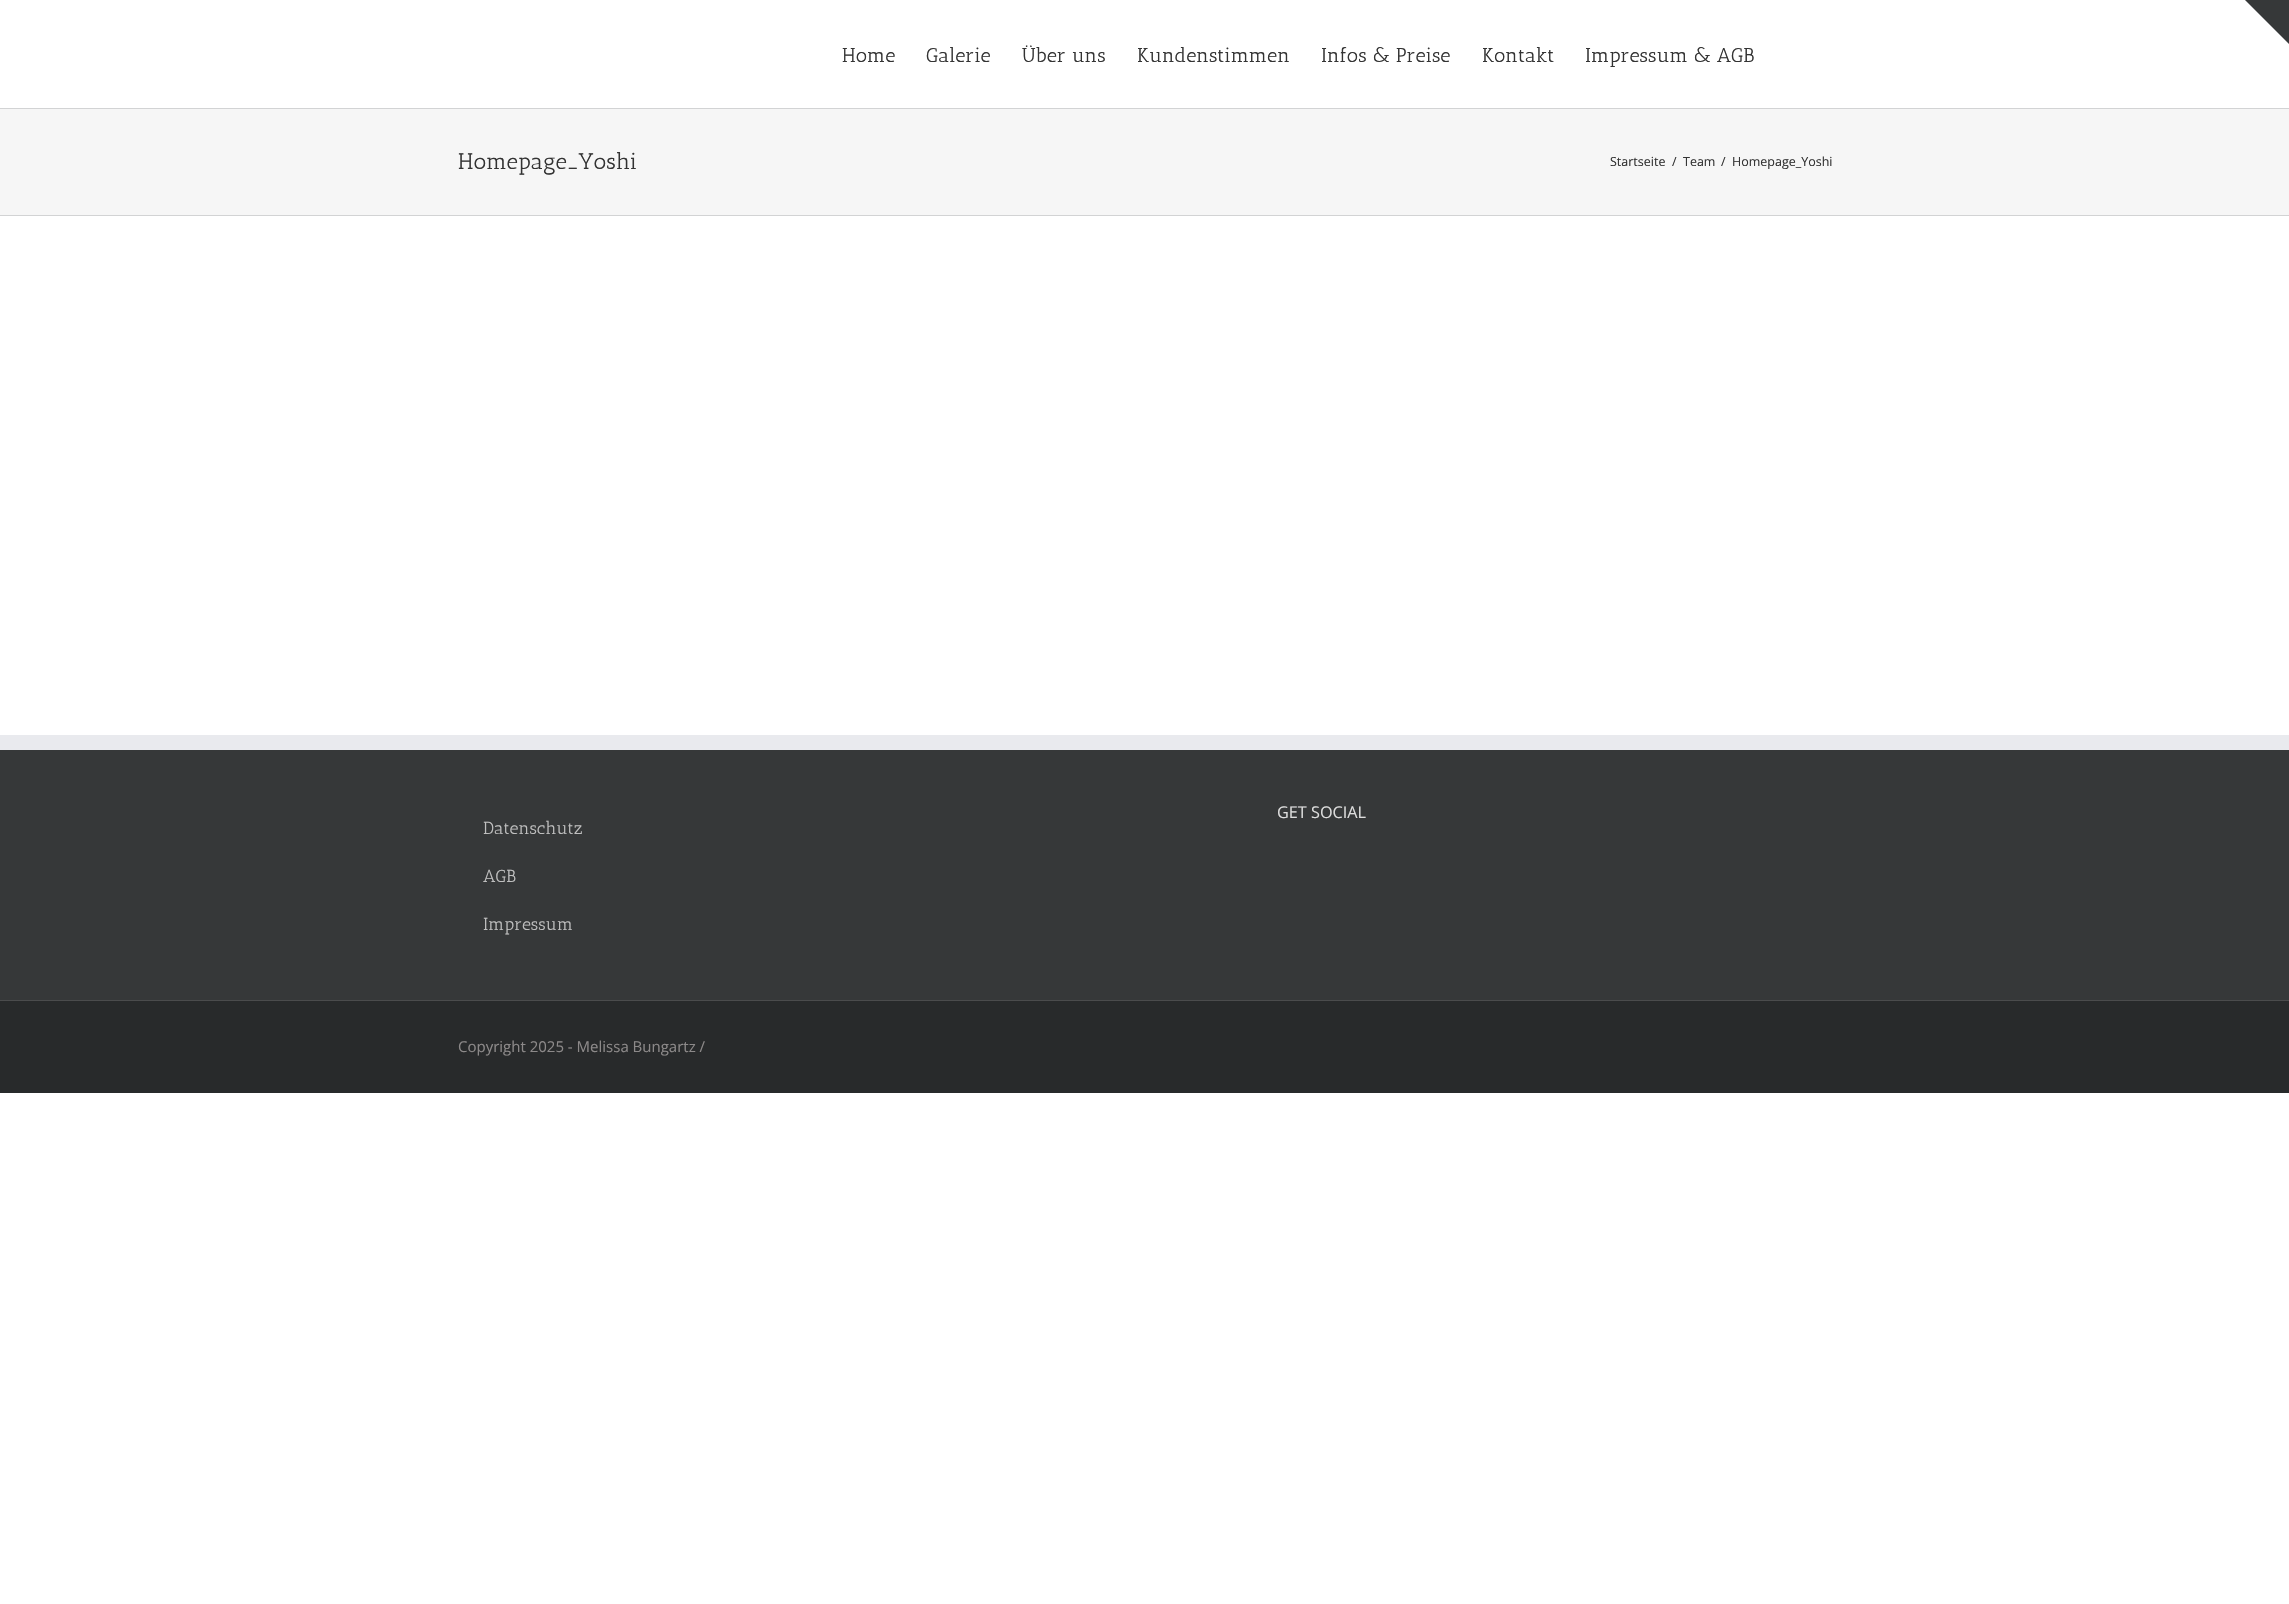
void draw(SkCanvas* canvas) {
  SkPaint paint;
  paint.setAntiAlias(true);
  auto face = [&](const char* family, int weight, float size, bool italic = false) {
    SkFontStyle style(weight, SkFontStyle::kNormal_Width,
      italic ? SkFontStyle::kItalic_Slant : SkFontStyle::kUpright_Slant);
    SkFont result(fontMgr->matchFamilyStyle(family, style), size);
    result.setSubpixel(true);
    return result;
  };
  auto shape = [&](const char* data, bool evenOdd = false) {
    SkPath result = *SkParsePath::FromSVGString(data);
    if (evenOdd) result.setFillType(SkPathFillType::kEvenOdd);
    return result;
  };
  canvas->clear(0xffffffff);
  paint.setColor(0xff363839);
  canvas->drawPath(shape("M2245 0H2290V45Z"), paint);
  {
    const struct { float x, y, w, h; SkColor color; } items[] = {
      {0, 109, 2289, 106, 0xfff6f6f6},
      {0, 108, 2289, 1, 0xffd2d3d4},
      {0, 215, 2289, 1, 0xffd2d3d4},
      {0, 750, 2289, 250, 0xff363839},
      {0, 735, 2289, 15, 0xffe9eaee},
      {0, 1001, 2289, 92, 0xff282a2b},
      {0, 1000, 2289, 1, 0xff4b4c4d},
    };
    for (auto [x, y, w, h, color] : items) {
      paint.setColor(color);
      canvas->drawRect(SkRect::MakeXYWH(x, y, w, h), paint);
    }
  }
  auto f0 = face("Antic Slab", 400, 20);
  paint.setColor(0xff333333);
  {
    const struct { const char* s; float x, y; } items[] = {
      {"Home", 842, 62},
      {"Galerie", 926, 62},
      {"Über uns", 1022, 62},
      {"Kundenstimmen", 1137, 62},
      {"Infos & Preise", 1321, 62},
      {"Kontakt", 1482, 62},
      {"Impressum & AGB", 1585, 62},
    };
    for (auto [s, x, y] : items) {
      canvas->drawString(s, x, y, f0, paint);
    }
  }
  auto f1 = face("Antic Slab", 400, 22.5f);
  canvas->drawString("Homepage_Yoshi", 458, 169, f1, paint);
  auto f2 = face("Open Sans", 400, 12.5f);
  {
    const struct { const char* s; float x, y; } items[] = {
      {"Startseite", 1610, 166},
      {"/", 1672, 166},
      {"Team", 1683, 166},
      {"/", 1721, 166},
      {"Homepage_Yoshi", 1732, 166},
    };
    for (auto [s, x, y] : items) {
      canvas->drawString(s, x, y, f2, paint);
    }
  }
  auto f3 = face("Open Sans", 400, 16.25f);
  paint.setColor(0xffdddddd);
  canvas->drawString("GET SOCIAL", 1277, 818, f3, paint);
  auto f4 = face("Antic Slab", 400, 17.5f);
  paint.setColor(0xffbfbfbf);
  {
    const struct { const char* s; float x, y; } items[] = {
      {"Datenschutz", 483, 834},
      {"AGB", 483, 882},
      {"Impressum", 483, 930},
    };
    for (auto [s, x, y] : items) {
      canvas->drawString(s, x, y, f4, paint);
    }
  }
  auto f5 = face("Open Sans", 400, 15);
  paint.setColor(0xff8c8989);
  canvas->drawString("Copyright 2025 - Melissa Bungartz /", 458, 1052, f5, paint);
}
